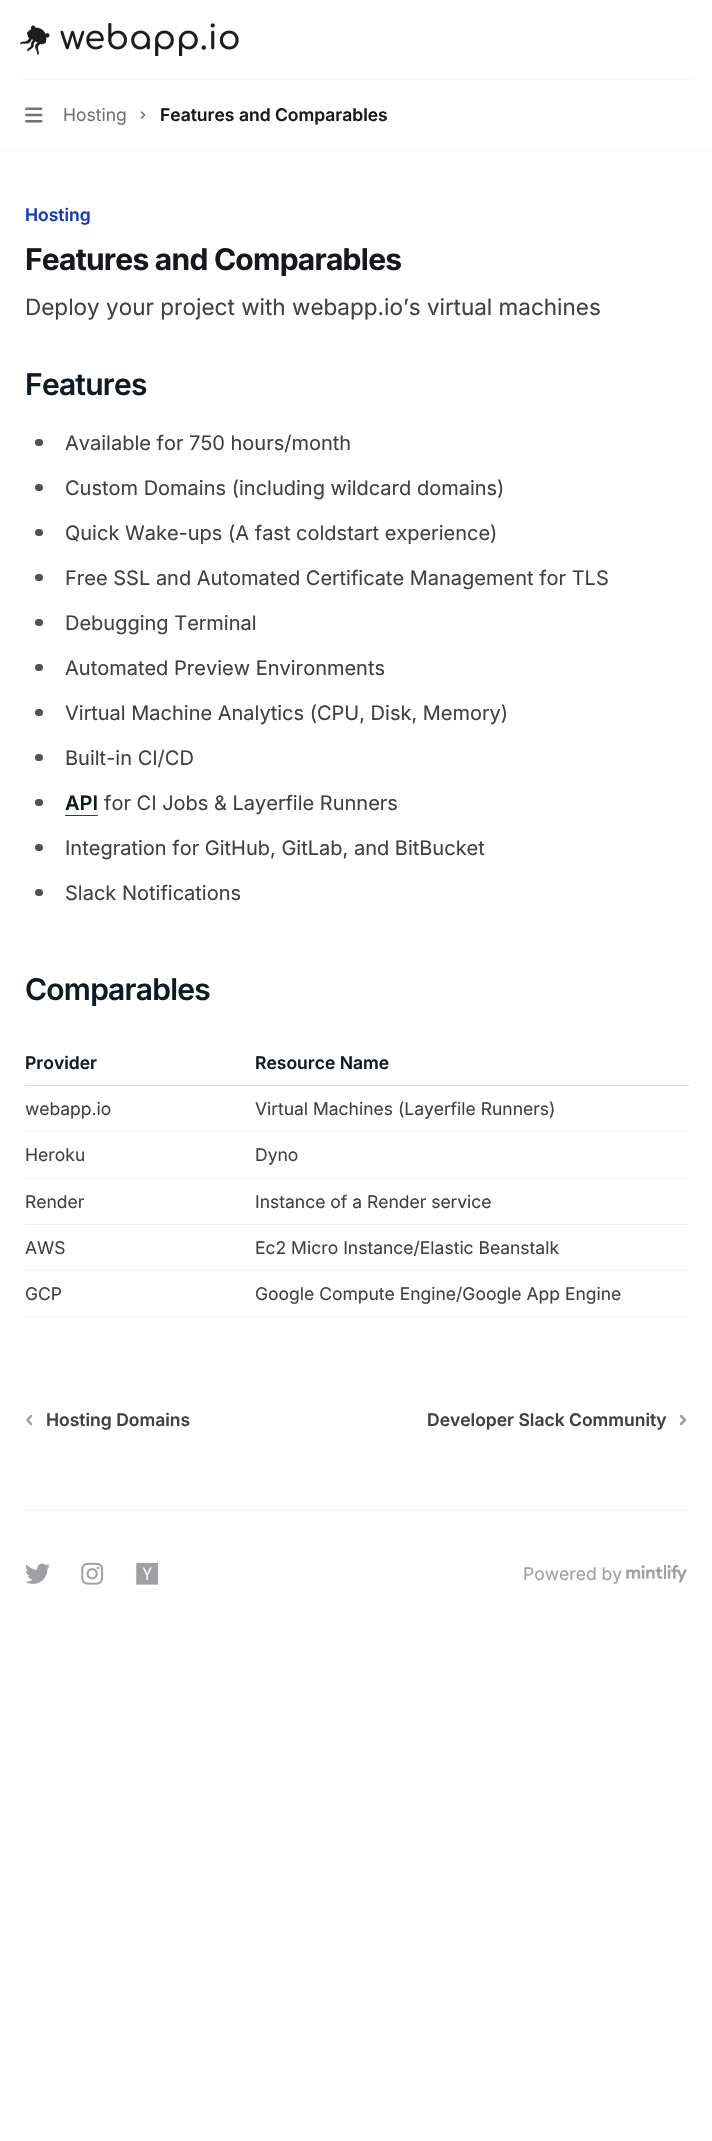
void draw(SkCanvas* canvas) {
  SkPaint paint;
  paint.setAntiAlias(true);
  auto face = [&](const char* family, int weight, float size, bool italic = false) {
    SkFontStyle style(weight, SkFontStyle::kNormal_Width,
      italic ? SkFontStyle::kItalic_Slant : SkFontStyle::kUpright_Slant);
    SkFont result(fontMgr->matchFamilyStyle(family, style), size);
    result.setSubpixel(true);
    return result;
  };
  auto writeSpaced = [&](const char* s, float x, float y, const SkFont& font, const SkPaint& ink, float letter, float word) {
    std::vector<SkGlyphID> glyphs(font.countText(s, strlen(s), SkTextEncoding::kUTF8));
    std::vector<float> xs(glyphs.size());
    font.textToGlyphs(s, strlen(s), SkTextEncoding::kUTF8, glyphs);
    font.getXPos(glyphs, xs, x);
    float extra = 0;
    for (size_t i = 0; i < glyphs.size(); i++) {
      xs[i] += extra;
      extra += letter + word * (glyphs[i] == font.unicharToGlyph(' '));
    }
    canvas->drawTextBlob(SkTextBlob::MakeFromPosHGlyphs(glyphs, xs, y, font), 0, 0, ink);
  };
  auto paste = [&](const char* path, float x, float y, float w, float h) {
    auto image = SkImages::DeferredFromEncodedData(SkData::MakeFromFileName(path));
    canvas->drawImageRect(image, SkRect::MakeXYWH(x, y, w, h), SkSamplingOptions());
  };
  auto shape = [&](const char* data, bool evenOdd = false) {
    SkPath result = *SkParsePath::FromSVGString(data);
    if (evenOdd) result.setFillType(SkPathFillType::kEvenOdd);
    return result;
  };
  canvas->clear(0xffffffff);
  paint.setColor(0xfff8f8f8);
  canvas->drawRect(SkRect::MakeXYWH(20, 79, 673, 1), paint);
  paste("img/1.png", 20, 23, 219, 33);
  paste("img/2.png", 25, 107, 18, 16);
  paint.setStroke(true);
  paint.setStrokeWidth(1.6f);
  paint.setStrokeCap(SkPaint::kRound_Cap);
  paint.setColor(0xff707176);
  canvas->drawPath(shape("M141.5 112L144.5 115L141.5 118"), paint);
  paint.setStroke(false);
  paint.setColor(0xfff8f8f8);
  canvas->drawRect(SkRect::MakeXYWH(0, 149, 712, 1), paint);
  paint.setColor(0xff505156);
  canvas->drawRoundRect(SkRect::MakeXYWH(35, 439, 8, 7), 3.5f, 3.5f, paint);
  canvas->drawRoundRect(SkRect::MakeXYWH(35, 484, 8, 7), 3.5f, 3.5f, paint);
  canvas->drawRoundRect(SkRect::MakeXYWH(35, 529, 8, 7), 3.5f, 3.5f, paint);
  canvas->drawRoundRect(SkRect::MakeXYWH(35, 574, 8, 7), 3.5f, 3.5f, paint);
  canvas->drawRoundRect(SkRect::MakeXYWH(35, 619, 8, 7), 3.5f, 3.5f, paint);
  canvas->drawRoundRect(SkRect::MakeXYWH(35, 664, 8, 7), 3.5f, 3.5f, paint);
  canvas->drawRoundRect(SkRect::MakeXYWH(35, 709, 8, 7), 3.5f, 3.5f, paint);
  canvas->drawRoundRect(SkRect::MakeXYWH(35, 754, 8, 7), 3.5f, 3.5f, paint);
  canvas->drawRoundRect(SkRect::MakeXYWH(35, 799, 8, 7), 3.5f, 3.5f, paint);
  paint.setColor(0xff1038c7);
  canvas->drawRect(SkRect::MakeXYWH(65, 815, 33, 1), paint);
  paint.setColor(0xff505156);
  canvas->drawRoundRect(SkRect::MakeXYWH(35, 844, 8, 7), 3.5f, 3.5f, paint);
  canvas->drawRoundRect(SkRect::MakeXYWH(35, 889, 8, 7), 3.5f, 3.5f, paint);
  {
    const struct { float x, y, w, h; SkColor color; } items[] = {
      {25, 1085, 664, 1, 0xffdee0e4},
      {25, 1131, 664, 1, 0xffeeeff4},
      {25, 1178, 664, 1, 0xffeeeff4},
      {25, 1224, 664, 1, 0xffeeeff4},
      {25, 1270, 664, 1, 0xffeeeff4},
      {25, 1316, 664, 1, 0xffeeeff4},
    };
    for (auto [x, y, w, h, color] : items) {
      paint.setColor(color);
      canvas->drawRect(SkRect::MakeXYWH(x, y, w, h), paint);
    }
  }
  paint.setStroke(true);
  paint.setStrokeWidth(2.5f);
  paint.setStrokeJoin(SkPaint::kRound_Join);
  paint.setColor(0xff9fa0a4);
  canvas->drawPath(shape("M31 1416L27.5 1420L31 1424"), paint);
  canvas->drawPath(shape("M681 1424L685 1420L681 1416"), paint);
  paint.setStroke(false);
  paint.setColor(0xffeeeff4);
  canvas->drawRect(SkRect::MakeXYWH(25, 1510, 663, 1), paint);
  paste("img/3.png", 25, 1563, 25, 21);
  paste("img/4.png", 81, 1562, 23, 23);
  paste("img/5.png", 136, 1562, 23, 23);
  paste("img/6.png", 626, 1565, 61, 18);
  auto f0 = face("Inter", 400, 17.5f);
  paint.setColor(0xff707176);
  canvas->drawString("Hosting", 63, 121, f0, paint);
  auto f1 = face("Inter", 600, 17.5f);
  paint.setColor(0xff17181c);
  canvas->drawString("Features and Comparables", 160, 121, f1, paint);
  paint.setColor(0xff1038c7);
  canvas->drawString("Hosting", 25, 221, f1, paint);
  auto f2 = face("Inter", 700, 30);
  paint.setColor(0xff17181c);
  writeSpaced("Features and Comparables", 25, 270, f2, paint, -0.75f, 0);
  auto f3 = face("Inter", 400, 22.5f);
  paint.setColor(0xff3f4044);
  canvas->drawString("Deploy your project with webapp.io’s virtual machines", 25, 315, f3, paint);
  auto f4 = face("Inter", 600, 30);
  paint.setColor(0xff111827);
  writeSpaced("Features", 25, 395, f4, paint, -0.75f, 0);
  auto f5 = face("Inter", 400, 20);
  paint.setColor(0xff3f4044);
  {
    const struct { const char* s; float x, y; } items[] = {
      {"Available for 750 hours/month", 65, 450},
      {"Custom Domains (including wildcard domains)", 65, 495},
      {"Quick Wake-ups (A fast coldstart experience)", 65, 540},
      {"Free SSL and Automated Certificate Management for TLS", 65, 585},
      {"Debugging Terminal", 65, 630},
      {"Automated Preview Environments", 65, 675},
      {"Virtual Machine Analytics (CPU, Disk, Memory)", 65, 720},
      {"Built-in CI/CD", 65, 765},
    };
    for (auto [s, x, y] : items) {
      canvas->drawString(s, x, y, f5, paint);
    }
  }
  auto f6 = face("Inter", 600, 20);
  paint.setColor(0xff111827);
  canvas->drawString("API", 65, 810, f6, paint);
  paint.setColor(0xff3f4044);
  {
    const struct { const char* s; float x, y; } items[] = {
      {"for CI Jobs & Layerfile Runners", 104, 810},
      {"Integration for GitHub, GitLab, and BitBucket", 65, 855},
      {"Slack Notifications", 65, 900},
    };
    for (auto [s, x, y] : items) {
      canvas->drawString(s, x, y, f5, paint);
    }
  }
  paint.setColor(0xff111827);
  writeSpaced("Comparables", 25, 1000, f4, paint, -0.75f, 0);
  canvas->drawString("Provider", 25, 1069, f1, paint);
  canvas->drawString("Resource Name", 255, 1069, f1, paint);
  paint.setColor(0xff3f4044);
  {
    const struct { const char* s; float x, y; } items[] = {
      {"webapp.io", 25, 1115},
      {"Virtual Machines (Layerfile Runners)", 255, 1115},
      {"Heroku", 25, 1161},
      {"Dyno", 255, 1161},
      {"Render", 25, 1208},
      {"Instance of a Render service", 255, 1208},
      {"AWS", 25, 1254},
      {"Ec2 Micro Instance/Elastic Beanstalk", 255, 1254},
      {"GCP", 25, 1300},
      {"Google Compute Engine/Google App Engine", 255, 1300},
    };
    for (auto [s, x, y] : items) {
      canvas->drawString(s, x, y, f0, paint);
    }
  }
  canvas->drawString("Hosting Domains", 46, 1426, f1, paint);
  canvas->drawString("Developer Slack Community", 427, 1426, f1, paint);
  paint.setColor(0xff9fa0a4);
  canvas->drawString("Powered by", 523, 1580, f0, paint);
}
